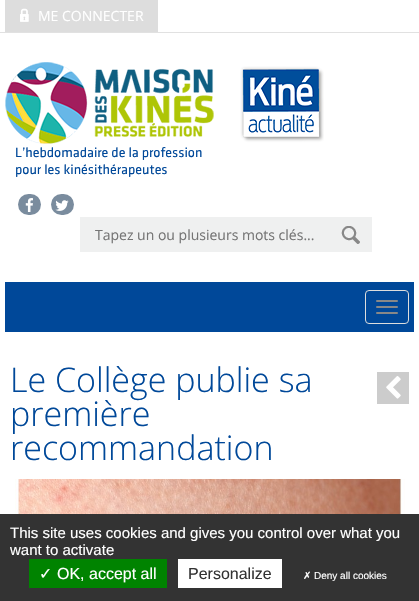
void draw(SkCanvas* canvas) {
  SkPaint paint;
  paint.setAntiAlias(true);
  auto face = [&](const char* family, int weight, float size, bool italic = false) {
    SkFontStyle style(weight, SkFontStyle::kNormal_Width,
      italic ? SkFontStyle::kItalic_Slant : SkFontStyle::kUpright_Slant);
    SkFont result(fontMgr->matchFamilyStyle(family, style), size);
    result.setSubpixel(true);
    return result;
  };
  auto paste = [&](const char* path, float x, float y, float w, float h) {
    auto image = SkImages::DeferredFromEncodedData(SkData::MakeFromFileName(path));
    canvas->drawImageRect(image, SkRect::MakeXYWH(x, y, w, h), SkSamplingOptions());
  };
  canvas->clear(0xffffffff);
  paint.setColor(0xffe1e1e1);
  canvas->drawRect(SkRect::MakeXYWH(0, 32, 419, 1), paint);
  paint.setColor(0xffdddddd);
  canvas->drawRect(SkRect::MakeXYWH(5, 0, 153, 32), paint);
  paste("img/1.png", 20, 8, 9, 14);
  paste("img/2.png", 5, 62, 319, 82);
  paint.setColor(0xff7a8c9e);
  canvas->drawRoundRect(SkRect::MakeXYWH(18, 194, 23, 21), 10.5f, 10.5f, paint);
  paste("img/3.png", 25, 198, 8, 14);
  canvas->drawRoundRect(SkRect::MakeXYWH(51, 194, 23, 21), 10.5f, 10.5f, paint);
  paste("img/4.png", 55, 200, 14, 11);
  paint.setColor(0xffeff0f0);
  canvas->drawRect(SkRect::MakeXYWH(80, 217, 253, 35), paint);
  paste("img/5.png", 333, 217, 39, 35);
  paint.setColor(0xff004899);
  canvas->drawRect(SkRect::MakeXYWH(5, 282, 409, 50), paint);
  paint.setStroke(true);
  paint.setStrokeWidth(1);
  paint.setColor(0xffdddddd);
  canvas->drawRoundRect(SkRect::MakeXYWH(365.5f, 290.5f, 43, 33), 3.5f, 3.5f, paint);
  paint.setStroke(false);
  paint.setColor(0xff888888);
  canvas->drawRoundRect(SkRect::MakeXYWH(376, 300, 22, 2), 1, 1, paint);
  canvas->drawRoundRect(SkRect::MakeXYWH(376, 306, 22, 2), 1, 1, paint);
  canvas->drawRoundRect(SkRect::MakeXYWH(376, 312, 22, 2), 1, 1, paint);
  paint.setColor(0xffcccccc);
  canvas->drawRect(SkRect::MakeXYWH(377, 372, 32, 32), paint);
  paste("img/6.png", 386, 376, 15, 23);
  paste("img/7.png", 15, 479, 390, 35);
  {
    const struct { float x, y, w, h; SkColor color; } items[] = {
      {0, 514, 419, 87, 0xff333333},
      {29, 559, 138, 29, 0xff008300},
      {178, 559, 104, 29, 0xffffffff},
    };
    for (auto [x, y, w, h, color] : items) {
      paint.setColor(color);
      canvas->drawRect(SkRect::MakeXYWH(x, y, w, h), paint);
    }
  }
  auto f0 = face("Open Sans", 400, 14);
  canvas->drawString("ME CONNECTER", 38, 21, f0, paint);
  auto f1 = face("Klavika", 400, 14);
  paint.setColor(0xff004899);
  canvas->drawString("L’hebdomadaire de la profession", 15, 157, f1, paint);
  canvas->drawString("pour les kinésithérapeutes", 15, 174, f1, paint);
  paint.setColor(0xff757575);
  canvas->drawString("Tapez un ou plusieurs mots clés...", 95, 240, f0, paint);
  auto f2 = face("Open Sans", 300, 34);
  paint.setColor(0xff004899);
  {
    const struct { const char* s; float x, y; } items[] = {
      {"Le Collège publie sa", 10, 392},
      {"première", 10, 426},
      {"recommandation", 10, 460},
    };
    for (auto [s, x, y] : items) {
      canvas->drawString(s, x, y, f2, paint);
    }
  }
  auto f3 = face("Liberation Sans", 400, 15);
  paint.setColor(0xffffffff);
  canvas->drawString("This site uses cookies and gives you control over what you", 10, 538, f3, paint);
  canvas->drawString("want to activate", 10, 555, f3, paint);
  auto f4 = face("DejaVu Sans", 400, 16);
  canvas->drawString("✓", 39, 579, f4, paint);
  auto f5 = face("Liberation Sans", 400, 16);
  canvas->drawString("OK, accept all", 57, 579, f5, paint);
  paint.setColor(0xff333333);
  canvas->drawString("Personalize", 188, 579, f5, paint);
  auto f6 = face("DejaVu Sans", 400, 10);
  paint.setColor(0xffffffff);
  canvas->drawString("✗", 303, 579, f6, paint);
  auto f7 = face("Liberation Sans", 400, 10);
  canvas->drawString("Deny all cookies", 314, 579, f7, paint);
}
